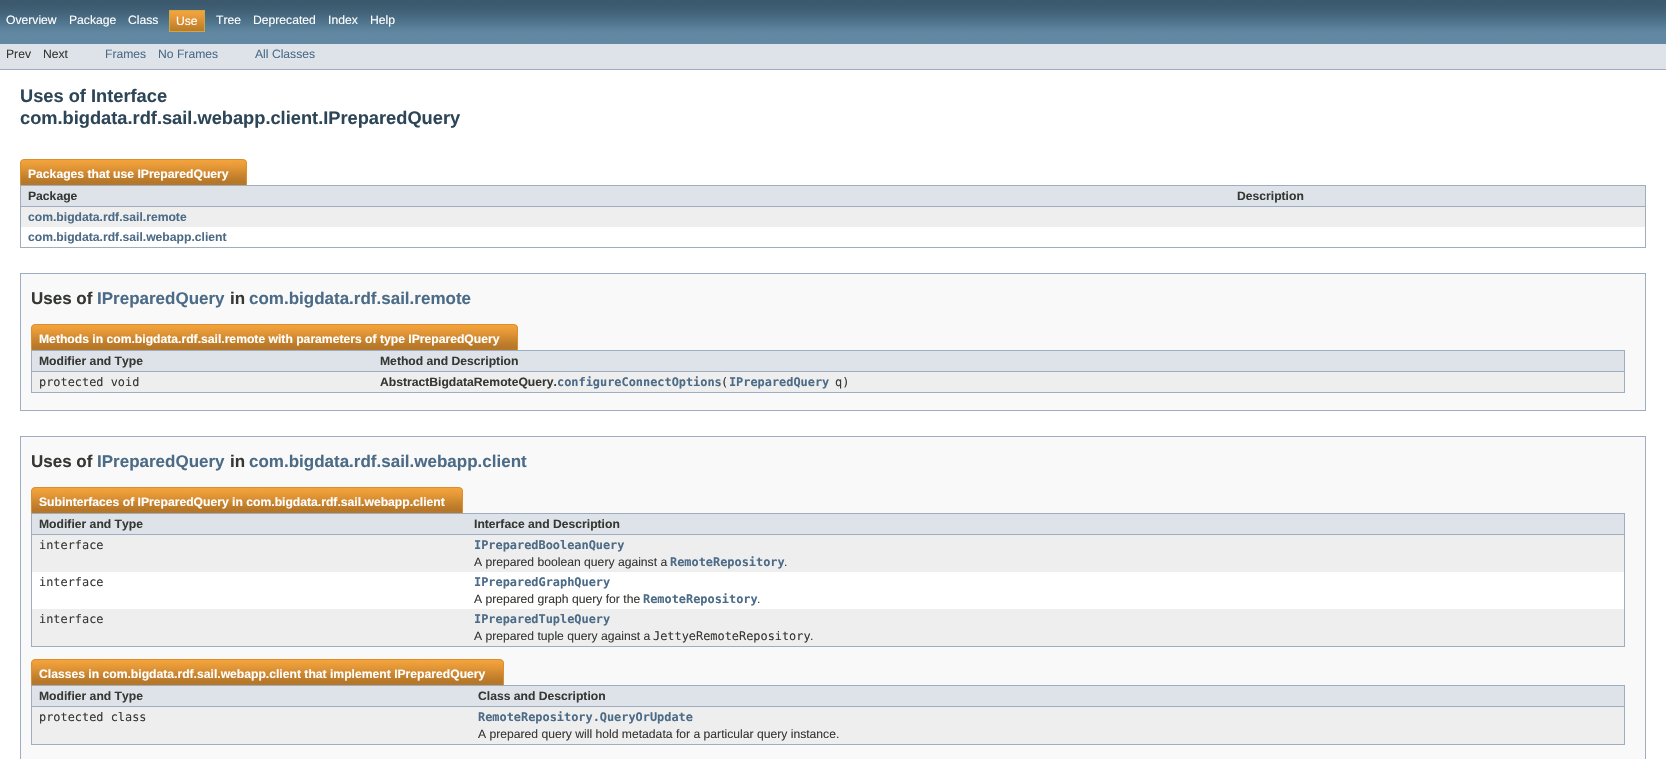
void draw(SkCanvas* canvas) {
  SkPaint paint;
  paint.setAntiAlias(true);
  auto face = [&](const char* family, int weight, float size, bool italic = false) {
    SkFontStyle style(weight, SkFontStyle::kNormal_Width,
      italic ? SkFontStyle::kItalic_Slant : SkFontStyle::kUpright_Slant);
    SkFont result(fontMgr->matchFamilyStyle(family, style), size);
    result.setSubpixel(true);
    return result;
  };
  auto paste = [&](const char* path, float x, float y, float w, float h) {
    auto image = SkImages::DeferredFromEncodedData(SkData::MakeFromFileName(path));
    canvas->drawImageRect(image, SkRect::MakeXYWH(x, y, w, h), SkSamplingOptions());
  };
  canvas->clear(0xffffffff);
  paste("img/1.png", 0, 0, 1666, 44);
  paste("img/2.png", 170, 11, 34, 20);
  paint.setStroke(true);
  paint.setStrokeWidth(1);
  paint.setColor(0xffc9aa44);
  canvas->drawRect(SkRect::MakeXYWH(169.5f, 10.5f, 35, 21), paint);
  paint.setStroke(false);
  {
    const struct { float x, y, w, h; SkColor color; } items[] = {
      {0, 44, 1666, 25, 0xffdee3e9},
      {0, 69, 1666, 1, 0xff9eadc0},
      {20, 247, 1626, 1, 0xff9eadc0},
    };
    for (auto [x, y, w, h, color] : items) {
      paint.setColor(color);
      canvas->drawRect(SkRect::MakeXYWH(x, y, w, h), paint);
    }
  }
  paste("img/3.png", 20, 159, 209, 26);
  paste("img/4.png", 229, 159, 18, 26);
  {
    const struct { float x, y, w, h; SkColor color; } items[] = {
      {21, 186, 1624, 20, 0xffdee3e9},
      {20, 185, 1626, 1, 0xff9eadc0},
      {20, 206, 1210, 1, 0xff9eadc0},
      {20, 185, 1, 62, 0xff9eadc0},
      {1645, 185, 1, 62, 0xff9eadc0},
      {1230, 206, 416, 1, 0xff9eadc0},
      {21, 207, 1624, 20, 0xffeeeeef},
    };
    for (auto [x, y, w, h, color] : items) {
      paint.setColor(color);
      canvas->drawRect(SkRect::MakeXYWH(x, y, w, h), paint);
    }
  }
  paint.setColor(0xfff9f9f9);
  canvas->drawRect(SkRect::MakeXYWH(20.5f, 273.5f, 1625, 137), paint);
  paint.setStroke(true);
  paint.setColor(0xff9eadc0);
  canvas->drawRect(SkRect::MakeXYWH(20.5f, 273.5f, 1625, 137), paint);
  paint.setStroke(false);
  canvas->drawRect(SkRect::MakeXYWH(31, 392, 1594, 1), paint);
  paste("img/5.png", 31, 324, 469, 26);
  paste("img/4.png", 500, 324, 18, 26);
  {
    const struct { float x, y, w, h; SkColor color; } items[] = {
      {32, 351, 1592, 20, 0xffdee3e9},
      {31, 350, 1594, 1, 0xff9eadc0},
      {31, 371, 342, 1, 0xff9eadc0},
      {31, 350, 1, 42, 0xff9eadc0},
      {1624, 350, 1, 42, 0xff9eadc0},
      {373, 371, 1252, 1, 0xff9eadc0},
      {32, 372, 1592, 20, 0xffeeeeef},
    };
    for (auto [x, y, w, h, color] : items) {
      paint.setColor(color);
      canvas->drawRect(SkRect::MakeXYWH(x, y, w, h), paint);
    }
  }
  paint.setColor(0xfff9f9f9);
  canvas->drawRect(SkRect::MakeXYWH(20.5f, 436.5f, 1625, 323), paint);
  paint.setStroke(true);
  paint.setColor(0xff9eadc0);
  canvas->drawRect(SkRect::MakeXYWH(20.5f, 436.5f, 1625, 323), paint);
  paint.setStroke(false);
  canvas->drawRect(SkRect::MakeXYWH(31, 646, 1594, 1), paint);
  paste("img/6.png", 31, 487, 414, 26);
  paste("img/4.png", 445, 487, 18, 26);
  {
    const struct { float x, y, w, h; SkColor color; } items[] = {
      {32, 514, 1592, 20, 0xffdee3e9},
      {31, 513, 1594, 1, 0xff9eadc0},
      {31, 534, 436, 1, 0xff9eadc0},
      {31, 513, 1, 133, 0xff9eadc0},
      {1624, 513, 1, 133, 0xff9eadc0},
      {467, 534, 1158, 1, 0xff9eadc0},
      {32, 535, 1592, 37, 0xffeeeeef},
      {32, 572, 1592, 37, 0xffffffff},
      {32, 609, 1592, 37, 0xffeeeeef},
      {31, 744, 1594, 1, 0xff9eadc0},
    };
    for (auto [x, y, w, h, color] : items) {
      paint.setColor(color);
      canvas->drawRect(SkRect::MakeXYWH(x, y, w, h), paint);
    }
  }
  paste("img/7.png", 31, 659, 455, 26);
  paste("img/4.png", 486, 659, 18, 26);
  {
    const struct { float x, y, w, h; SkColor color; } items[] = {
      {32, 686, 1592, 20, 0xffdee3e9},
      {31, 685, 1594, 1, 0xff9eadc0},
      {31, 706, 440, 1, 0xff9eadc0},
      {31, 685, 1, 59, 0xff9eadc0},
      {1624, 685, 1, 59, 0xff9eadc0},
      {471, 706, 1154, 1, 0xff9eadc0},
      {32, 707, 1592, 37, 0xffeeeeef},
    };
    for (auto [x, y, w, h, color] : items) {
      paint.setColor(color);
      canvas->drawRect(SkRect::MakeXYWH(x, y, w, h), paint);
    }
  }
  auto f0 = face("Liberation Sans", 400, 12.15f);
  paint.setColor(0xffffffff);
  {
    const struct { const char* s; float x, y; } items[] = {
      {"Overview", 6, 24},
      {"Package", 69, 24},
      {"Class", 128, 24},
      {"Use", 176, 25},
      {"Tree", 216, 24},
      {"Deprecated", 253, 24},
      {"Index", 328, 24},
      {"Help", 370, 24},
    };
    for (auto [s, x, y] : items) {
      canvas->drawString(s, x, y, f0, paint);
    }
  }
  paint.setColor(0xff353833);
  canvas->drawString("Prev", 6, 58, f0, paint);
  canvas->drawString("Next", 43, 58, f0, paint);
  paint.setColor(0xff4c6b87);
  {
    const struct { const char* s; float x, y; } items[] = {
      {"Frames", 105, 58},
      {"No Frames", 158, 58},
      {"All Classes", 255, 58},
    };
    for (auto [s, x, y] : items) {
      canvas->drawString(s, x, y, f0, paint);
    }
  }
  auto f1 = face("Liberation Sans", 700, 18.25f);
  paint.setColor(0xff2c4557);
  canvas->drawString("Uses of Interface", 20, 102, f1, paint);
  canvas->drawString("com.bigdata.rdf.sail.webapp.client.IPreparedQuery", 20, 124, f1, paint);
  auto f2 = face("Liberation Sans", 700, 12.15f);
  paint.setColor(0xffffffff);
  canvas->drawString("Packages that use IPreparedQuery", 28, 178, f2, paint);
  paint.setColor(0xff353833);
  canvas->drawString("Package", 28, 200, f2, paint);
  canvas->drawString("Description", 1237, 200, f2, paint);
  paint.setColor(0xff4c6b87);
  canvas->drawString("com.bigdata.rdf.sail.remote", 28, 221, f2, paint);
  canvas->drawString("com.bigdata.rdf.sail.webapp.client", 28, 241, f2, paint);
  auto f3 = face("Liberation Sans", 700, 17);
  paint.setColor(0xff353833);
  canvas->drawString("Uses of", 31, 304, f3, paint);
  paint.setColor(0xff4c6b87);
  canvas->drawString("IPreparedQuery", 97, 304, f3, paint);
  paint.setColor(0xff353833);
  canvas->drawString("in", 230, 304, f3, paint);
  paint.setColor(0xff4c6b87);
  canvas->drawString("com.bigdata.rdf.sail.remote", 249, 304, f3, paint);
  paint.setColor(0xffffffff);
  canvas->drawString("Methods in com.bigdata.rdf.sail.remote with parameters of type IPreparedQuery", 39, 343, f2, paint);
  paint.setColor(0xff353833);
  canvas->drawString("Modifier and Type", 39, 365, f2, paint);
  canvas->drawString("Method and Description", 380, 365, f2, paint);
  auto f4 = face("DejaVu Sans Mono", 400, 11.9f);
  canvas->drawString("protected void", 39, 386, f4, paint);
  canvas->drawString("AbstractBigdataRemoteQuery.", 380, 386, f2, paint);
  auto f5 = face("DejaVu Sans Mono", 700, 11.9f);
  paint.setColor(0xff4c6b87);
  canvas->drawString("configureConnectOptions IPreparedQuery", 557, 386, f5, paint);
  paint.setColor(0xff353833);
  canvas->drawString("(", 721, 386, f4, paint);
  canvas->drawString("q)", 835, 386, f4, paint);
  canvas->drawString("Uses of", 31, 467, f3, paint);
  paint.setColor(0xff4c6b87);
  canvas->drawString("IPreparedQuery", 97, 467, f3, paint);
  paint.setColor(0xff353833);
  canvas->drawString("in", 230, 467, f3, paint);
  paint.setColor(0xff4c6b87);
  canvas->drawString("com.bigdata.rdf.sail.webapp.client", 249, 467, f3, paint);
  paint.setColor(0xffffffff);
  canvas->drawString("Subinterfaces of IPreparedQuery in com.bigdata.rdf.sail.webapp.client", 39, 506, f2, paint);
  paint.setColor(0xff353833);
  canvas->drawString("Modifier and Type", 39, 528, f2, paint);
  canvas->drawString("Interface and Description", 474, 528, f2, paint);
  canvas->drawString("interface", 39, 549, f4, paint);
  paint.setColor(0xff4c6b87);
  canvas->drawString("IPreparedBooleanQuery", 474, 549, f5, paint);
  paint.setColor(0xff353833);
  canvas->drawString("A prepared boolean query against a", 474, 566, f0, paint);
  paint.setColor(0xff4c6b87);
  canvas->drawString("RemoteRepository", 670, 566, f5, paint);
  paint.setColor(0xff353833);
  canvas->drawString(".", 784, 566, f0, paint);
  canvas->drawString("interface", 39, 586, f4, paint);
  paint.setColor(0xff4c6b87);
  canvas->drawString("IPreparedGraphQuery", 474, 586, f5, paint);
  paint.setColor(0xff353833);
  canvas->drawString("A prepared graph query for the", 474, 603, f0, paint);
  paint.setColor(0xff4c6b87);
  canvas->drawString("RemoteRepository", 643, 603, f5, paint);
  paint.setColor(0xff353833);
  canvas->drawString(".", 757, 603, f0, paint);
  canvas->drawString("interface", 39, 623, f4, paint);
  paint.setColor(0xff4c6b87);
  canvas->drawString("IPreparedTupleQuery", 474, 623, f5, paint);
  paint.setColor(0xff353833);
  canvas->drawString("A prepared tuple query against a", 474, 640, f0, paint);
  canvas->drawString("JettyeRemoteRepository", 653, 640, f4, paint);
  canvas->drawString(".", 810, 640, f0, paint);
  paint.setColor(0xffffffff);
  canvas->drawString("Classes in com.bigdata.rdf.sail.webapp.client that implement IPreparedQuery", 39, 678, f2, paint);
  paint.setColor(0xff353833);
  canvas->drawString("Modifier and Type", 39, 700, f2, paint);
  canvas->drawString("Class and Description", 478, 700, f2, paint);
  canvas->drawString("protected class", 39, 721, f4, paint);
  paint.setColor(0xff4c6b87);
  canvas->drawString("RemoteRepository.QueryOrUpdate", 478, 721, f5, paint);
  paint.setColor(0xff353833);
  canvas->drawString("A prepared query will hold metadata for a particular query instance.", 478, 738, f0, paint);
}
